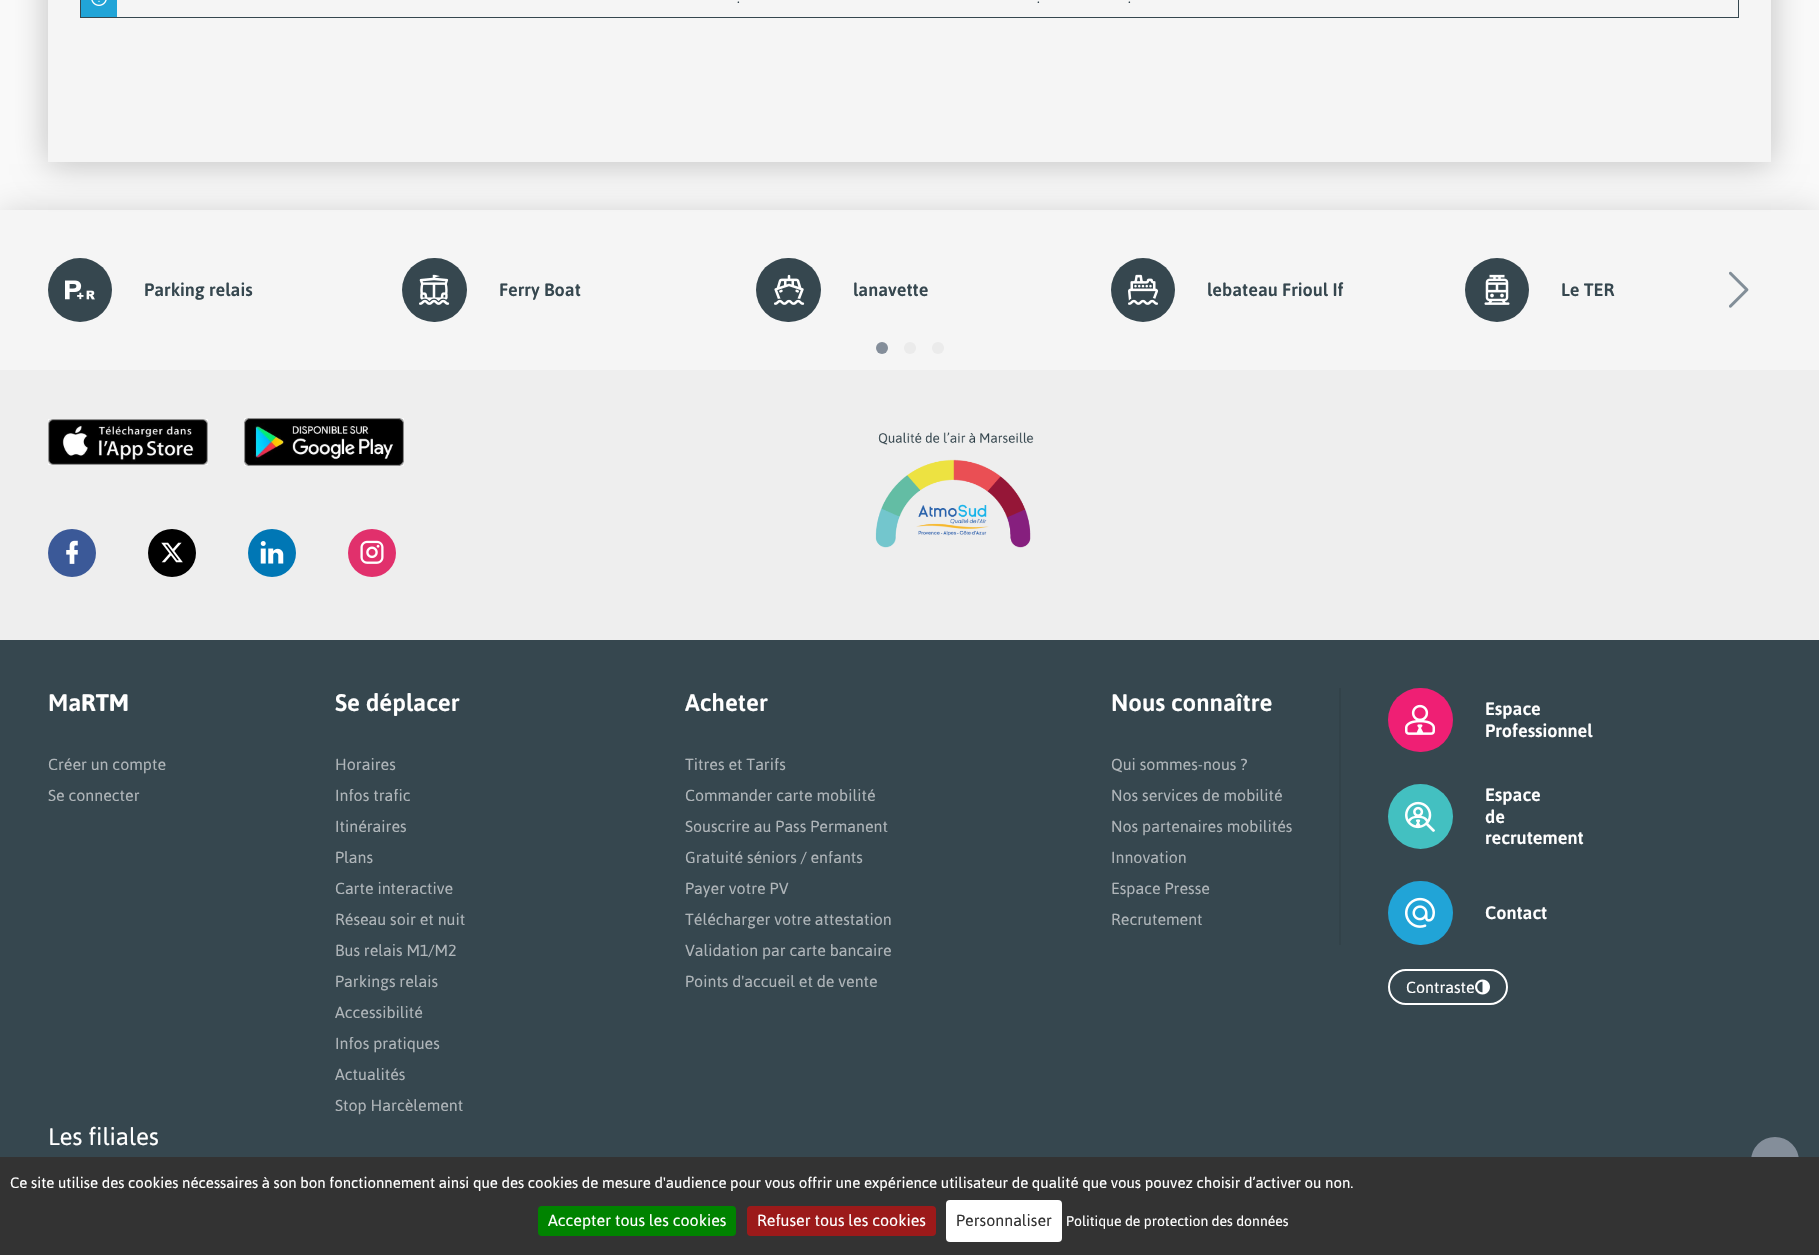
void draw(SkCanvas* canvas) {
  SkPaint paint;
  paint.setAntiAlias(true);
  auto face = [&](const char* family, int weight, float size, bool italic = false) {
    SkFontStyle style(weight, SkFontStyle::kNormal_Width,
      italic ? SkFontStyle::kItalic_Slant : SkFontStyle::kUpright_Slant);
    SkFont result(fontMgr->matchFamilyStyle(family, style), size);
    result.setSubpixel(true);
    return result;
  };
  auto paste = [&](const char* path, float x, float y, float w, float h) {
    auto image = SkImages::DeferredFromEncodedData(SkData::MakeFromFileName(path));
    canvas->drawImageRect(image, SkRect::MakeXYWH(x, y, w, h), SkSamplingOptions());
  };
  canvas->clear(0xfffafafa);
  paint.setColor(0x29000000);
  paint.setMaskFilter(SkMaskFilter::MakeBlur(kNormal_SkBlurStyle, 16));
  canvas->drawRect(SkRect::MakeXYWH(0, 212, 1819, 160), paint);
  paint.setMaskFilter(nullptr);
  paint.setColor(0xfff5f5f5);
  canvas->drawRect(SkRect::MakeXYWH(0, 210, 1819, 160), paint);
  paint.setColor(0x3d000000);
  paint.setMaskFilter(SkMaskFilter::MakeBlur(kNormal_SkBlurStyle, 16));
  canvas->drawRect(SkRect::MakeXYWH(48, -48, 1723, 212), paint);
  paint.setMaskFilter(nullptr);
  paint.setColor(0xfff5f5f5);
  canvas->drawRect(SkRect::MakeXYWH(48, 0, 1723, 162), paint);
  paint.setStroke(true);
  paint.setStrokeWidth(1);
  paint.setColor(0xff36474f);
  canvas->drawRect(SkRect::MakeXYWH(80.5f, -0.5f, 1658, 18), paint);
  paint.setStroke(false);
  paint.setColor(0xff21a4d7);
  canvas->drawRect(SkRect::MakeXYWH(81, 0, 36, 17), paint);
  paste("img/1.png", 91, 0, 16, 6);
  paint.setColor(0xff36474f);
  canvas->drawCircle(80, 290, 32, paint);
  paste("img/2.png", 65, 280, 30, 20);
  canvas->drawRoundRect(SkRect::MakeXYWH(402, 258, 65, 64), 32, 32, paint);
  paste("img/3.png", 419, 274, 31, 31);
  canvas->drawRoundRect(SkRect::MakeXYWH(756, 258, 65, 64), 32, 32, paint);
  paste("img/4.png", 774, 274, 31, 31);
  canvas->drawCircle(1143, 290, 32, paint);
  paste("img/5.png", 1128, 274, 30, 31);
  canvas->drawCircle(1497, 290, 32, paint);
  paste("img/6.png", 1484, 274, 26, 31);
  paste("img/7.png", 1729, 271, 20, 37);
  paint.setColor(0xff848e9a);
  canvas->drawCircle(882, 348, 6, paint);
  paint.setColor(0xffebebeb);
  canvas->drawCircle(910, 348, 6, paint);
  canvas->drawCircle(938, 348, 6, paint);
  paint.setColor(0xffeeeeee);
  canvas->drawRect(SkRect::MakeXYWH(0, 370, 1819, 270), paint);
  paste("img/8.png", 48, 419, 160, 46);
  paste("img/9.png", 244, 418, 160, 48);
  paint.setColor(0xff3b5998);
  canvas->drawCircle(72, 553, 24, paint);
  paste("img/10.png", 66, 540, 12, 24);
  paint.setColor(0xff000000);
  canvas->drawCircle(172, 553, 24, paint);
  paste("img/11.png", 161, 542, 22, 21);
  paint.setColor(0xff0077b5);
  canvas->drawCircle(272, 553, 24, paint);
  paste("img/12.png", 260, 541, 24, 23);
  paint.setColor(0xffe1306c);
  canvas->drawCircle(372, 553, 24, paint);
  paste("img/13.png", 360, 540, 24, 24);
  paste("img/14.png", 875, 432, 159, 116);
  paint.setColor(0xff36474f);
  canvas->drawRect(SkRect::MakeXYWH(0, 640, 1819, 517), paint);
  paint.setColor(0xff324249);
  canvas->drawRect(SkRect::MakeXYWH(1339, 688, 2, 257), paint);
  paint.setColor(0xffef1f74);
  canvas->drawRoundRect(SkRect::MakeXYWH(1388, 688, 65, 64), 32, 32, paint);
  paste("img/15.png", 1405, 704, 30, 31);
  paint.setColor(0xff43c0c1);
  canvas->drawCircle(1420.5f, 816.5f, 32.5f, paint);
  paste("img/16.png", 1405, 801, 30, 31);
  paint.setColor(0xff21a4d7);
  canvas->drawRoundRect(SkRect::MakeXYWH(1388, 881, 65, 64), 32, 32, paint);
  paste("img/17.png", 1405, 897, 30, 31);
  paint.setStroke(true);
  paint.setStrokeWidth(2);
  paint.setColor(0xffffffff);
  canvas->drawRoundRect(SkRect::MakeXYWH(1389, 970, 118, 34), 17, 17, paint);
  paste("img/18.png", 1475, 979, 15, 16);
  paint.setStroke(false);
  paint.setColor(0xff848e9a);
  canvas->drawCircle(1775, 1161, 24, paint);
  paint.setColor(0xff333333);
  canvas->drawRect(SkRect::MakeXYWH(0, 1157, 1819, 98), paint);
  paint.setColor(0xff008300);
  canvas->drawRoundRect(SkRect::MakeXYWH(538, 1206, 198, 30), 4, 4, paint);
  paint.setColor(0xff9c1a1a);
  canvas->drawRoundRect(SkRect::MakeXYWH(747, 1206, 189, 30), 4, 4, paint);
  paint.setColor(0xffffffff);
  canvas->drawRoundRect(SkRect::MakeXYWH(946, 1200, 116, 42), 4, 4, paint);
  auto f0 = face("Asap", 400, 14);
  paint.setColor(0xff36474f);
  {
    const struct { const char* s; float x, y; } items[] = {
      {".", 737, 3},
      {".", 1037, 3},
      {".", 1128, 3},
    };
    for (auto [s, x, y] : items) {
      canvas->drawString(s, x, y, f0, paint);
    }
  }
  auto f1 = face("Asap", 500, 18);
  {
    const struct { const char* s; float x, y; } items[] = {
      {"Parking relais", 144, 296},
      {"Ferry Boat", 499, 296},
      {"lanavette", 853, 296},
      {"lebateau Frioul If", 1207, 296},
      {"Le TER", 1561, 296},
    };
    for (auto [s, x, y] : items) {
      canvas->drawString(s, x, y, f1, paint);
    }
  }
  auto f2 = face("Asap", 500, 24);
  paint.setColor(0xffffffff);
  canvas->drawString("Ma", 48, 711, f2, paint);
  auto f3 = face("Asap", 700, 24);
  canvas->drawString("RTM", 81, 711, f3, paint);
  auto f4 = face("Asap", 400, 16);
  paint.setColor(0xffafb5b9);
  canvas->drawString("Créer un compte", 48, 770, f4, paint);
  canvas->drawString("Se connecter", 48, 801, f4, paint);
  paint.setColor(0xffffffff);
  canvas->drawString("Se déplacer", 335, 711, f2, paint);
  paint.setColor(0xffafb5b9);
  {
    const struct { const char* s; float x, y; } items[] = {
      {"Horaires", 335, 770},
      {"Infos trafic", 335, 801},
      {"Itinéraires", 335, 832},
      {"Plans", 335, 863},
      {"Carte interactive", 335, 894},
      {"Réseau soir et nuit", 335, 925},
      {"Bus relais M1/M2", 335, 956},
      {"Parkings relais", 335, 987},
      {"Accessibilité", 335, 1018},
      {"Infos pratiques", 335, 1049},
      {"Actualités", 335, 1080},
      {"Stop Harcèlement", 335, 1111},
    };
    for (auto [s, x, y] : items) {
      canvas->drawString(s, x, y, f4, paint);
    }
  }
  paint.setColor(0xffffffff);
  canvas->drawString("Acheter", 685, 711, f2, paint);
  paint.setColor(0xffafb5b9);
  {
    const struct { const char* s; float x, y; } items[] = {
      {"Titres et Tarifs", 685, 770},
      {"Commander carte mobilité", 685, 801},
      {"Souscrire au Pass Permanent", 685, 832},
      {"Gratuité séniors / enfants", 685, 863},
      {"Payer votre PV", 685, 894},
      {"Télécharger votre attestation", 685, 925},
      {"Validation par carte bancaire", 685, 956},
      {"Points d'accueil et de vente", 685, 987},
    };
    for (auto [s, x, y] : items) {
      canvas->drawString(s, x, y, f4, paint);
    }
  }
  paint.setColor(0xffffffff);
  canvas->drawString("Nous connaître", 1111, 711, f2, paint);
  paint.setColor(0xffafb5b9);
  {
    const struct { const char* s; float x, y; } items[] = {
      {"Qui sommes-nous ?", 1111, 770},
      {"Nos services de mobilité", 1111, 801},
      {"Nos partenaires mobilités", 1111, 832},
      {"Innovation", 1111, 863},
      {"Espace Presse", 1111, 894},
      {"Recrutement", 1111, 925},
    };
    for (auto [s, x, y] : items) {
      canvas->drawString(s, x, y, f4, paint);
    }
  }
  paint.setColor(0xffffffff);
  {
    const struct { const char* s; float x, y; } items[] = {
      {"Espace", 1485, 715},
      {"Professionnel", 1485, 737},
      {"Espace", 1485, 801},
      {"de", 1485, 823},
      {"recrutement", 1485, 844},
      {"Contact", 1485, 919},
    };
    for (auto [s, x, y] : items) {
      canvas->drawString(s, x, y, f1, paint);
    }
  }
  canvas->drawString("Contraste", 1406, 993, f4, paint);
  auto f5 = face("Asap", 400, 24);
  canvas->drawString("Les filiales", 48, 1145, f5, paint);
  auto f6 = face("Asap", 400, 15);
  canvas->drawString("Ce site utilise des cookies nécessaires à son bon fonctionnement ainsi que des cookies de mesure d'audience pour vous offrir une expérience utilisateur de qualité que vous pouvez choisir d’activer ou non.", 10, 1188, f6, paint);
  canvas->drawString("Accepter tous les cookies", 548, 1226, f4, paint);
  canvas->drawString("Refuser tous les cookies", 757, 1226, f4, paint);
  paint.setColor(0xff333333);
  canvas->drawString("Personnaliser", 956, 1226, f4, paint);
  paint.setColor(0xffffffff);
  canvas->drawString("Politique de protection des données", 1066, 1226, f0, paint);
}
